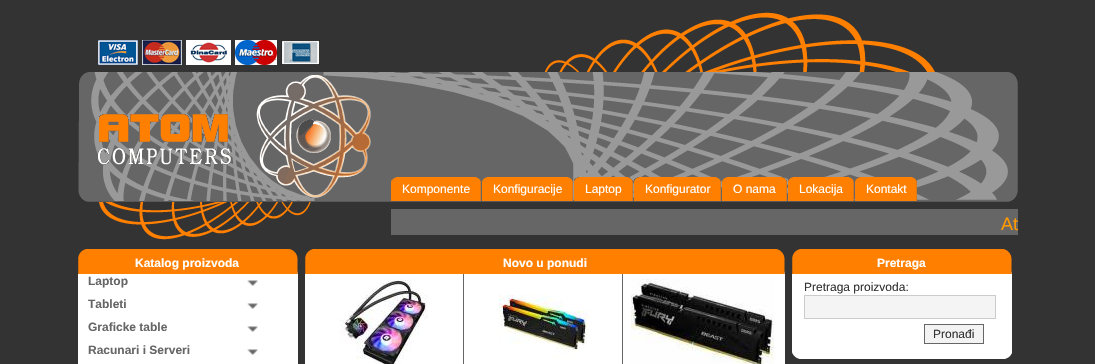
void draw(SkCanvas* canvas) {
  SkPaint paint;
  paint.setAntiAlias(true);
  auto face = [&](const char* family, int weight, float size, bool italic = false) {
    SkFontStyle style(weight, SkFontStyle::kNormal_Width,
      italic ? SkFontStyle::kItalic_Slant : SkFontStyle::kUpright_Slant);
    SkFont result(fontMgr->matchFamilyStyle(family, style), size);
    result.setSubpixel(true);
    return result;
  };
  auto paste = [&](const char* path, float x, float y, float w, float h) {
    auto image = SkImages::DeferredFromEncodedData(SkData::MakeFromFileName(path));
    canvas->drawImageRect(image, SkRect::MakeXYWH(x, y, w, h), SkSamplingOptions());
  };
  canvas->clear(0xff333333);
  paste("img/1.png", 98, 40, 40, 25);
  paste("img/2.png", 142, 40, 40, 25);
  paste("img/3.png", 186, 40, 45, 25);
  paste("img/4.png", 235, 40, 42, 25);
  paste("img/5.png", 281, 40, 39, 25);
  paste("img/6.png", 544, 12, 391, 60);
  paste("img/7.png", 78, 72, 940, 130);
  paste("img/8.png", 98, 75, 273, 123);
  paste("img/9.png", 391, 177, 5, 24);
  paste("img/10.png", 476, 177, 5, 24);
  paint.setColor(0xffff7f00);
  canvas->drawRect(SkRect::MakeXYWH(396, 177, 80, 24), paint);
  paste("img/11.png", 482, 177, 5, 24);
  paste("img/10.png", 568, 177, 5, 24);
  canvas->drawRect(SkRect::MakeXYWH(487, 177, 81, 24), paint);
  paste("img/12.png", 574, 177, 5, 24);
  paste("img/13.png", 628, 177, 5, 24);
  canvas->drawRect(SkRect::MakeXYWH(579, 177, 49, 24), paint);
  paste("img/12.png", 634, 177, 5, 24);
  paste("img/10.png", 716, 177, 5, 24);
  canvas->drawRect(SkRect::MakeXYWH(639, 177, 77, 24), paint);
  paste("img/11.png", 722, 177, 5, 24);
  paste("img/14.png", 782, 177, 5, 24);
  canvas->drawRect(SkRect::MakeXYWH(727, 177, 55, 24), paint);
  paste("img/11.png", 788, 177, 5, 24);
  paste("img/10.png", 849, 177, 5, 24);
  canvas->drawRect(SkRect::MakeXYWH(793, 177, 56, 24), paint);
  paste("img/15.png", 855, 177, 5, 24);
  paste("img/10.png", 912, 177, 5, 24);
  canvas->drawRect(SkRect::MakeXYWH(860, 177, 52, 24), paint);
  paste("img/16.png", 99, 202, 212, 38);
  paint.setColor(0xff666666);
  canvas->drawRect(SkRect::MakeXYWH(391, 209, 627, 26), paint);
  paste("img/17.png", 78, 249, 8, 25);
  paint.setColor(0xffff7f00);
  canvas->drawRect(SkRect::MakeXYWH(86, 249, 204, 25), paint);
  paste("img/18.png", 290, 249, 8, 25);
  paint.setColor(0xffffffff);
  canvas->drawRect(SkRect::MakeXYWH(78, 274, 220, 90), paint);
  paste("img/19.png", 247, 280, 11, 6);
  paste("img/19.png", 247, 303, 11, 6);
  paste("img/19.png", 247, 326, 11, 6);
  paste("img/19.png", 247, 349, 11, 6);
  paste("img/17.png", 305, 249, 8, 25);
  paint.setColor(0xffff7f00);
  canvas->drawRect(SkRect::MakeXYWH(313, 249, 464, 25), paint);
  paste("img/18.png", 777, 249, 8, 25);
  paint.setColor(0xffffffff);
  canvas->drawRect(SkRect::MakeXYWH(305, 274, 480, 90), paint);
  paint.setColor(0xff666666);
  canvas->drawRect(SkRect::MakeXYWH(463, 274, 1, 90), paint);
  paste("img/20.png", 340, 279, 88, 85);
  canvas->drawRect(SkRect::MakeXYWH(622, 274, 1, 90), paint);
  paste("img/21.png", 499, 294, 90, 65);
  paste("img/22.png", 631, 279, 143, 85);
  paste("img/17.png", 792, 249, 8, 25);
  paint.setColor(0xffff7f00);
  canvas->drawRect(SkRect::MakeXYWH(800, 249, 204, 25), paint);
  paste("img/18.png", 1004, 249, 8, 25);
  paint.setColor(0xffffffff);
  canvas->drawRect(SkRect::MakeXYWH(792, 274, 220, 75), paint);
  paint.setColor(0xfff4f4f4);
  canvas->drawRect(SkRect::MakeXYWH(804.5f, 295.5f, 191, 23), paint);
  paint.setStroke(true);
  paint.setStrokeWidth(1);
  paint.setColor(0xffcccccc);
  canvas->drawRect(SkRect::MakeXYWH(804.5f, 295.5f, 191, 23), paint);
  paint.setStroke(false);
  paint.setColor(0xfff3f3f3);
  canvas->drawRect(SkRect::MakeXYWH(924.5f, 324.5f, 59, 19), paint);
  paint.setStroke(true);
  paint.setColor(0xff666666);
  canvas->drawRect(SkRect::MakeXYWH(924.5f, 324.5f, 59, 19), paint);
  paste("img/23.png", 792, 349, 10, 10);
  paint.setStroke(false);
  paint.setColor(0xffffffff);
  canvas->drawRect(SkRect::MakeXYWH(802, 349, 200, 10), paint);
  paste("img/24.png", 1002, 349, 10, 10);
  auto f0 = face("Liberation Sans", 400, 12);
  {
    const struct { const char* s; float x, y; } items[] = {
      {"Komponente", 402, 193},
      {"Konfiguracije", 493, 193},
      {"Laptop", 585, 193},
      {"Konfigurator", 645, 193},
      {"O nama", 733, 193},
      {"Lokacija", 799, 193},
      {"Kontakt", 866, 193},
    };
    for (auto [s, x, y] : items) {
      canvas->drawString(s, x, y, f0, paint);
    }
  }
  auto f1 = face("Liberation Sans", 400, 18);
  paint.setColor(0xffff9900);
  canvas->drawString("At", 1001, 230, f1, paint);
  auto f2 = face("Liberation Sans", 700, 12);
  paint.setColor(0xffffffff);
  canvas->drawString("Katalog proizvoda", 135, 267, f2, paint);
  paint.setColor(0xff666666);
  {
    const struct { const char* s; float x, y; } items[] = {
      {"Laptop", 88, 285},
      {"Tableti", 88, 308},
      {"Graficke table", 88, 331},
      {"Racunari i Serveri", 88, 354},
    };
    for (auto [s, x, y] : items) {
      canvas->drawString(s, x, y, f2, paint);
    }
  }
  paint.setColor(0xffffffff);
  canvas->drawString("Novo u ponudi", 503, 267, f2, paint);
  canvas->drawString("Pretraga", 877, 267, f2, paint);
  paint.setColor(0xff333333);
  canvas->drawString("Pretraga proizvoda:", 804, 291, f0, paint);
  canvas->drawString("Pronađi", 933, 338, f0, paint);
}
